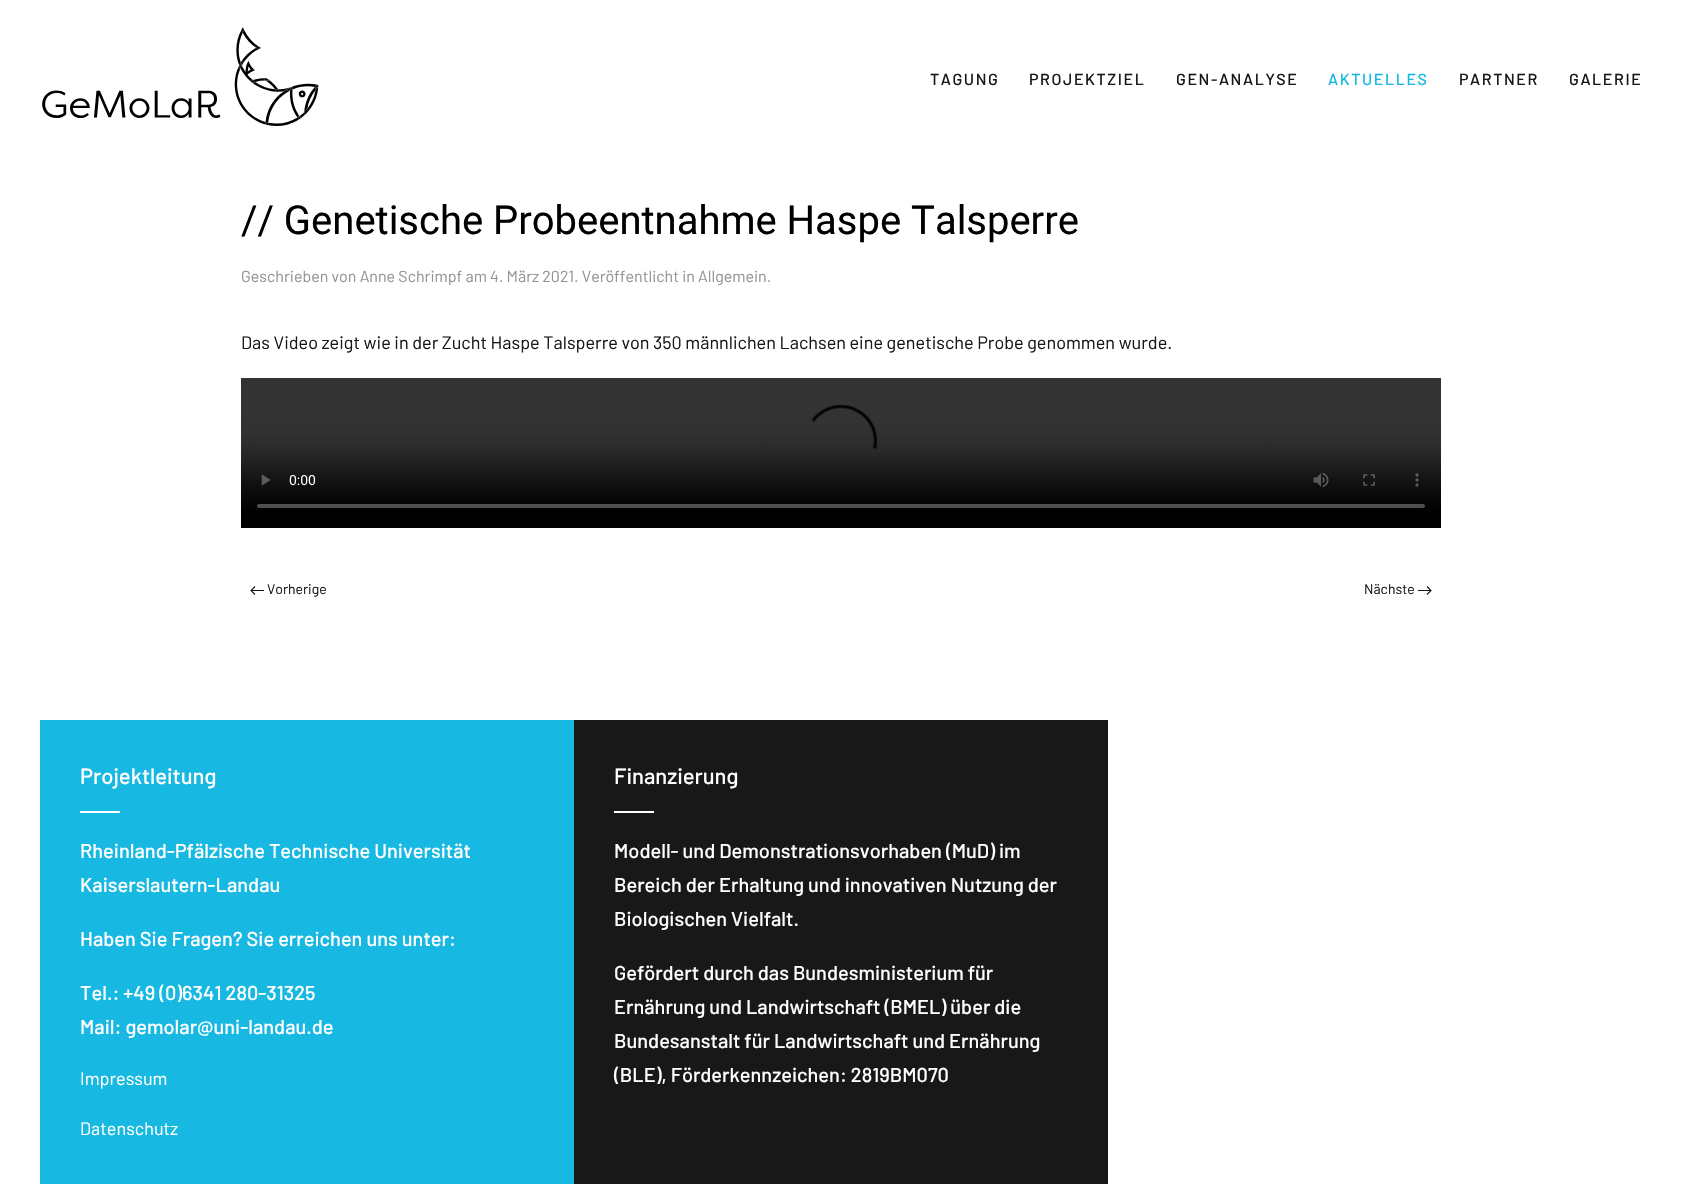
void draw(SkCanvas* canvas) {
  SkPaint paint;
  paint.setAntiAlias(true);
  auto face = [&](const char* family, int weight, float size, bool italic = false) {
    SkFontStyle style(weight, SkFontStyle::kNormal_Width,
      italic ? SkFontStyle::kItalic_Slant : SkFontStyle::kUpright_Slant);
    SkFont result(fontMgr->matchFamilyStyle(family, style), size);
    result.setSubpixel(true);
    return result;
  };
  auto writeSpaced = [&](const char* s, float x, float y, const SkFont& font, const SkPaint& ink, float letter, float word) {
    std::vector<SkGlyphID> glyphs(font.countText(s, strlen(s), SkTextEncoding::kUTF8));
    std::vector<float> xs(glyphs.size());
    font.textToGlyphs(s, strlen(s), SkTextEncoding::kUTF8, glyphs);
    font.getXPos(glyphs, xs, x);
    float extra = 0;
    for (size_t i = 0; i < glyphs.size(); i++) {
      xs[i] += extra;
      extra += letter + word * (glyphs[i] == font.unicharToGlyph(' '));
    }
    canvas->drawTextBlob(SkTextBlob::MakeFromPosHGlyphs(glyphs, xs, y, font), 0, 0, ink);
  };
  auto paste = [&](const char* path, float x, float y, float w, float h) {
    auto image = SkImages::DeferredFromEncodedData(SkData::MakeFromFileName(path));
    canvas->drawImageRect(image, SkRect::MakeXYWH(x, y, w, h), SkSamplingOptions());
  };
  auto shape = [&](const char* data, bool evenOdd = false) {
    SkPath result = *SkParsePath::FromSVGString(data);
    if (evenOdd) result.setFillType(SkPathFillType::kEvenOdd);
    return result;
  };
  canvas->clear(0xffffffff);
  paste("img/1.png", 42, 27, 277, 99);
  paste("img/2.png", 241, 378, 1200, 150);
  paint.setStroke(true);
  paint.setStrokeWidth(1.1f);
  paint.setColor(0xff181818);
  canvas->drawPath(shape("M255 594.5L251 590.5L255 586.5"), paint);
  paint.setStroke(false);
  canvas->drawRect(SkRect::MakeXYWH(251, 590, 13, 1), paint);
  paint.setStroke(true);
  canvas->drawPath(shape("M1427 586.5L1431 590.5L1427 594.5"), paint);
  paint.setStroke(false);
  {
    const struct { float x, y, w, h; SkColor color; } items[] = {
      {1418, 590, 13, 1, 0xff181818},
      {40, 720, 534, 464, 0xff17b8e1},
      {80, 811, 40, 2, 0xffffffff},
      {574, 720, 534, 464, 0xff181818},
      {614, 811, 40, 2, 0xffffffff},
    };
    for (auto [x, y, w, h, color] : items) {
      paint.setColor(color);
      canvas->drawRect(SkRect::MakeXYWH(x, y, w, h), paint);
    }
  }
  auto f0 = face("Barlow", 500, 16);
  paint.setColor(0xff181818);
  {
    const struct { const char* s; float x, y; } items[] = {
      {"TAGUNG", 930, 85},
      {"PROJEKTZIEL", 1029, 85},
      {"GEN-ANALYSE", 1176, 85},
    };
    for (auto [s, x, y] : items) {
      writeSpaced(s, x, y, f0, paint, 1.6f, 0);
    }
  }
  paint.setColor(0xff17b8e1);
  writeSpaced("AKTUELLES", 1328, 85, f0, paint, 1.6f, 0);
  paint.setColor(0xff181818);
  writeSpaced("PARTNER", 1459, 85, f0, paint, 1.6f, 0);
  writeSpaced("GALERIE", 1569, 85, f0, paint, 1.6f, 0);
  auto f1 = face("Roboto", 400, 40);
  paint.setColor(0xff000000);
  canvas->drawString("// Genetische Probeentnahme Haspe Talsperre", 241, 234, f1, paint);
  auto f2 = face("Barlow", 400, 16);
  paint.setColor(0xff949494);
  canvas->drawString("Geschrieben von Anne Schrimpf am 4. März 2021. Veröffentlicht in Allgemein.", 241, 282, f2, paint);
  auto f3 = face("Barlow", 400, 18);
  paint.setColor(0xff181818);
  canvas->drawString("Das Video zeigt wie in der Zucht Haspe Talsperre von 350 männlichen Lachsen eine genetische Probe genommen wurde.", 241, 349, f3, paint);
  auto f4 = face("Barlow", 400, 14);
  canvas->drawString("Vorherige", 267, 594, f4, paint);
  canvas->drawString("Nächste", 1364, 594, f4, paint);
  auto f5 = face("Barlow", 500, 22);
  paint.setColor(0xffffffff);
  canvas->drawString("Projektleitung", 80, 784, f5, paint);
  auto f6 = face("Barlow", 500, 20);
  {
    const struct { const char* s; float x, y; } items[] = {
      {"Rheinland-Pfälzische Technische Universität", 80, 858},
      {"Kaiserslautern-Landau", 80, 892},
      {"Haben Sie Fragen? Sie erreichen uns unter:", 80, 946},
      {"Tel.: +49 (0)6341 280-31325", 80, 1000},
      {"Mail: gemolar@uni-landau.de", 80, 1034},
    };
    for (auto [s, x, y] : items) {
      canvas->drawString(s, x, y, f6, paint);
    }
  }
  canvas->drawString("Impressum", 80, 1085, f3, paint);
  canvas->drawString("Datenschutz", 80, 1135, f3, paint);
  canvas->drawString("Finanzierung", 614, 784, f5, paint);
  {
    const struct { const char* s; float x, y; } items[] = {
      {"Modell- und Demonstrationsvorhaben (MuD) im", 614, 858},
      {"Bereich der Erhaltung und innovativen Nutzung der", 614, 892},
      {"Biologischen Vielfalt.", 614, 926},
      {"Gefördert durch das Bundesministerium für", 614, 980},
      {"Ernährung und Landwirtschaft (BMEL) über die", 614, 1014},
      {"Bundesanstalt für Landwirtschaft und Ernährung", 614, 1048},
      {"(BLE), Förderkennzeichen: 2819BM070", 614, 1082},
    };
    for (auto [s, x, y] : items) {
      canvas->drawString(s, x, y, f6, paint);
    }
  }
}
